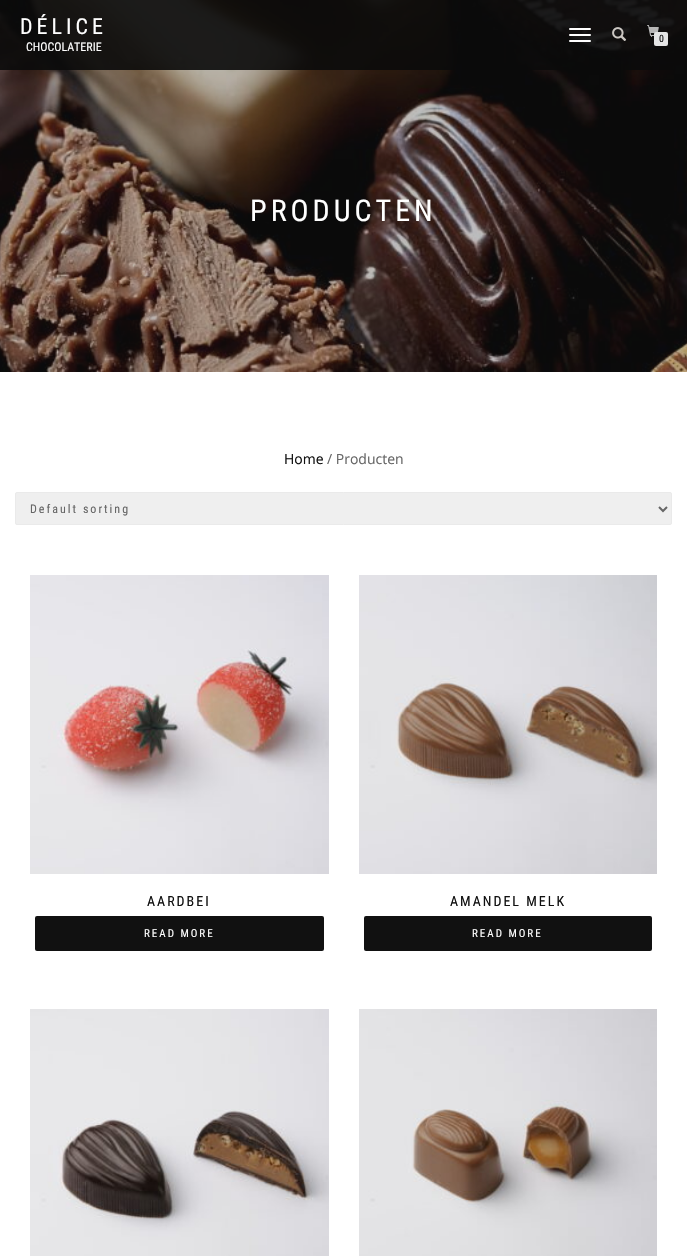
void draw(SkCanvas* canvas) {
  SkPaint paint;
  paint.setAntiAlias(true);
  auto face = [&](const char* family, int weight, float size, bool italic = false) {
    SkFontStyle style(weight, SkFontStyle::kNormal_Width,
      italic ? SkFontStyle::kItalic_Slant : SkFontStyle::kUpright_Slant);
    SkFont result(fontMgr->matchFamilyStyle(family, style), size);
    result.setSubpixel(true);
    return result;
  };
  auto writeSpaced = [&](const char* s, float x, float y, const SkFont& font, const SkPaint& ink, float letter, float word) {
    std::vector<SkGlyphID> glyphs(font.countText(s, strlen(s), SkTextEncoding::kUTF8));
    std::vector<float> xs(glyphs.size());
    font.textToGlyphs(s, strlen(s), SkTextEncoding::kUTF8, glyphs);
    font.getXPos(glyphs, xs, x);
    float extra = 0;
    for (size_t i = 0; i < glyphs.size(); i++) {
      xs[i] += extra;
      extra += letter + word * (glyphs[i] == font.unicharToGlyph(' '));
    }
    canvas->drawTextBlob(SkTextBlob::MakeFromPosHGlyphs(glyphs, xs, y, font), 0, 0, ink);
  };
  auto paste = [&](const char* path, float x, float y, float w, float h) {
    auto image = SkImages::DeferredFromEncodedData(SkData::MakeFromFileName(path));
    canvas->drawImageRect(image, SkRect::MakeXYWH(x, y, w, h), SkSamplingOptions());
  };
  auto shape = [&](const char* data, bool evenOdd = false) {
    SkPath result = *SkParsePath::FromSVGString(data);
    if (evenOdd) result.setFillType(SkPathFillType::kEvenOdd);
    return result;
  };
  canvas->clear(0xffffffff);
  paste("img/3.png", 0, 0, 687, 372);
  paint.setColor(0xe60a0a0a);
  canvas->drawRect(SkRect::MakeXYWH(0, 0, 687, 70), paint);
  paint.setColor(0xffffffff);
  canvas->drawRoundRect(SkRect::MakeXYWH(569, 28, 22, 2), 1, 1, paint);
  canvas->drawRoundRect(SkRect::MakeXYWH(569, 34, 22, 2), 1, 1, paint);
  canvas->drawRoundRect(SkRect::MakeXYWH(569, 40, 22, 2), 1, 1, paint);
  paste("img/1.png", 612, 27, 15, 14);
  paste("img/2.png", 647, 25, 12, 12);
  paint.setColor(0xffe5e5e5);
  canvas->drawRoundRect(SkRect::MakeXYWH(654, 32, 14, 14), 2, 2, paint);
  paint.setColor(0xffefefef);
  canvas->drawRoundRect(SkRect::MakeXYWH(15.5f, 492.5f, 656, 32), 1.5f, 1.5f, paint);
  paint.setStroke(true);
  paint.setStrokeWidth(1);
  paint.setColor(0xffeaeaea);
  canvas->drawRoundRect(SkRect::MakeXYWH(15.5f, 492.5f, 656, 32), 1.5f, 1.5f, paint);
  paint.setStrokeWidth(2);
  paint.setColor(0xff666666);
  canvas->drawPath(shape("M659 507L663 511L667 507"), paint);
  paste("img/4.png", 30, 575, 299, 299);
  paint.setStroke(false);
  paint.setColor(0xff111111);
  canvas->drawRoundRect(SkRect::MakeXYWH(35, 916, 289, 35), 2, 2, paint);
  paste("img/5.png", 359, 575, 298, 299);
  canvas->drawRoundRect(SkRect::MakeXYWH(364, 916, 288, 35), 2, 2, paint);
  paste("img/6.png", 30, 1009, 299, 247);
  paste("img/7.png", 359, 1009, 298, 247);
  auto f0 = face("Roboto Condensed", 400, 22);
  paint.setColor(0xffffffff);
  writeSpaced("DÉLICE", 20, 34, f0, paint, 4, 0);
  auto f1 = face("Roboto Condensed", 400, 12);
  canvas->drawString("CHOCOLATERIE", 26, 51, f1, paint);
  auto f2 = face("Roboto Condensed", 400, 10);
  paint.setColor(0xff111111);
  canvas->drawString("0", 659, 42, f2, paint);
  auto f3 = face("Roboto Condensed", 400, 30);
  paint.setColor(0xffffffff);
  writeSpaced("PRODUCTEN", 250, 221, f3, paint, 4, 0);
  auto f4 = face("Open Sans", 400, 14);
  paint.setColor(0xff111111);
  canvas->drawString("Home", 284, 464, f4, paint);
  paint.setColor(0xff666666);
  canvas->drawString("/ Producten", 327, 464, f4, paint);
  writeSpaced("Default sorting", 30, 513, f1, paint, 2, 0);
  auto f5 = face("Roboto Condensed", 400, 14);
  paint.setColor(0xff111111);
  writeSpaced("AARDBEI", 147, 906, f5, paint, 2, 0);
  auto f6 = face("Roboto Condensed", 400, 11);
  paint.setColor(0xffffffff);
  writeSpaced("READ MORE", 144, 937, f6, paint, 2, 0);
  paint.setColor(0xff111111);
  writeSpaced("AMANDEL MELK", 450, 906, f5, paint, 2, 0);
  paint.setColor(0xffffffff);
  writeSpaced("READ MORE", 472, 937, f6, paint, 2, 0);
}
